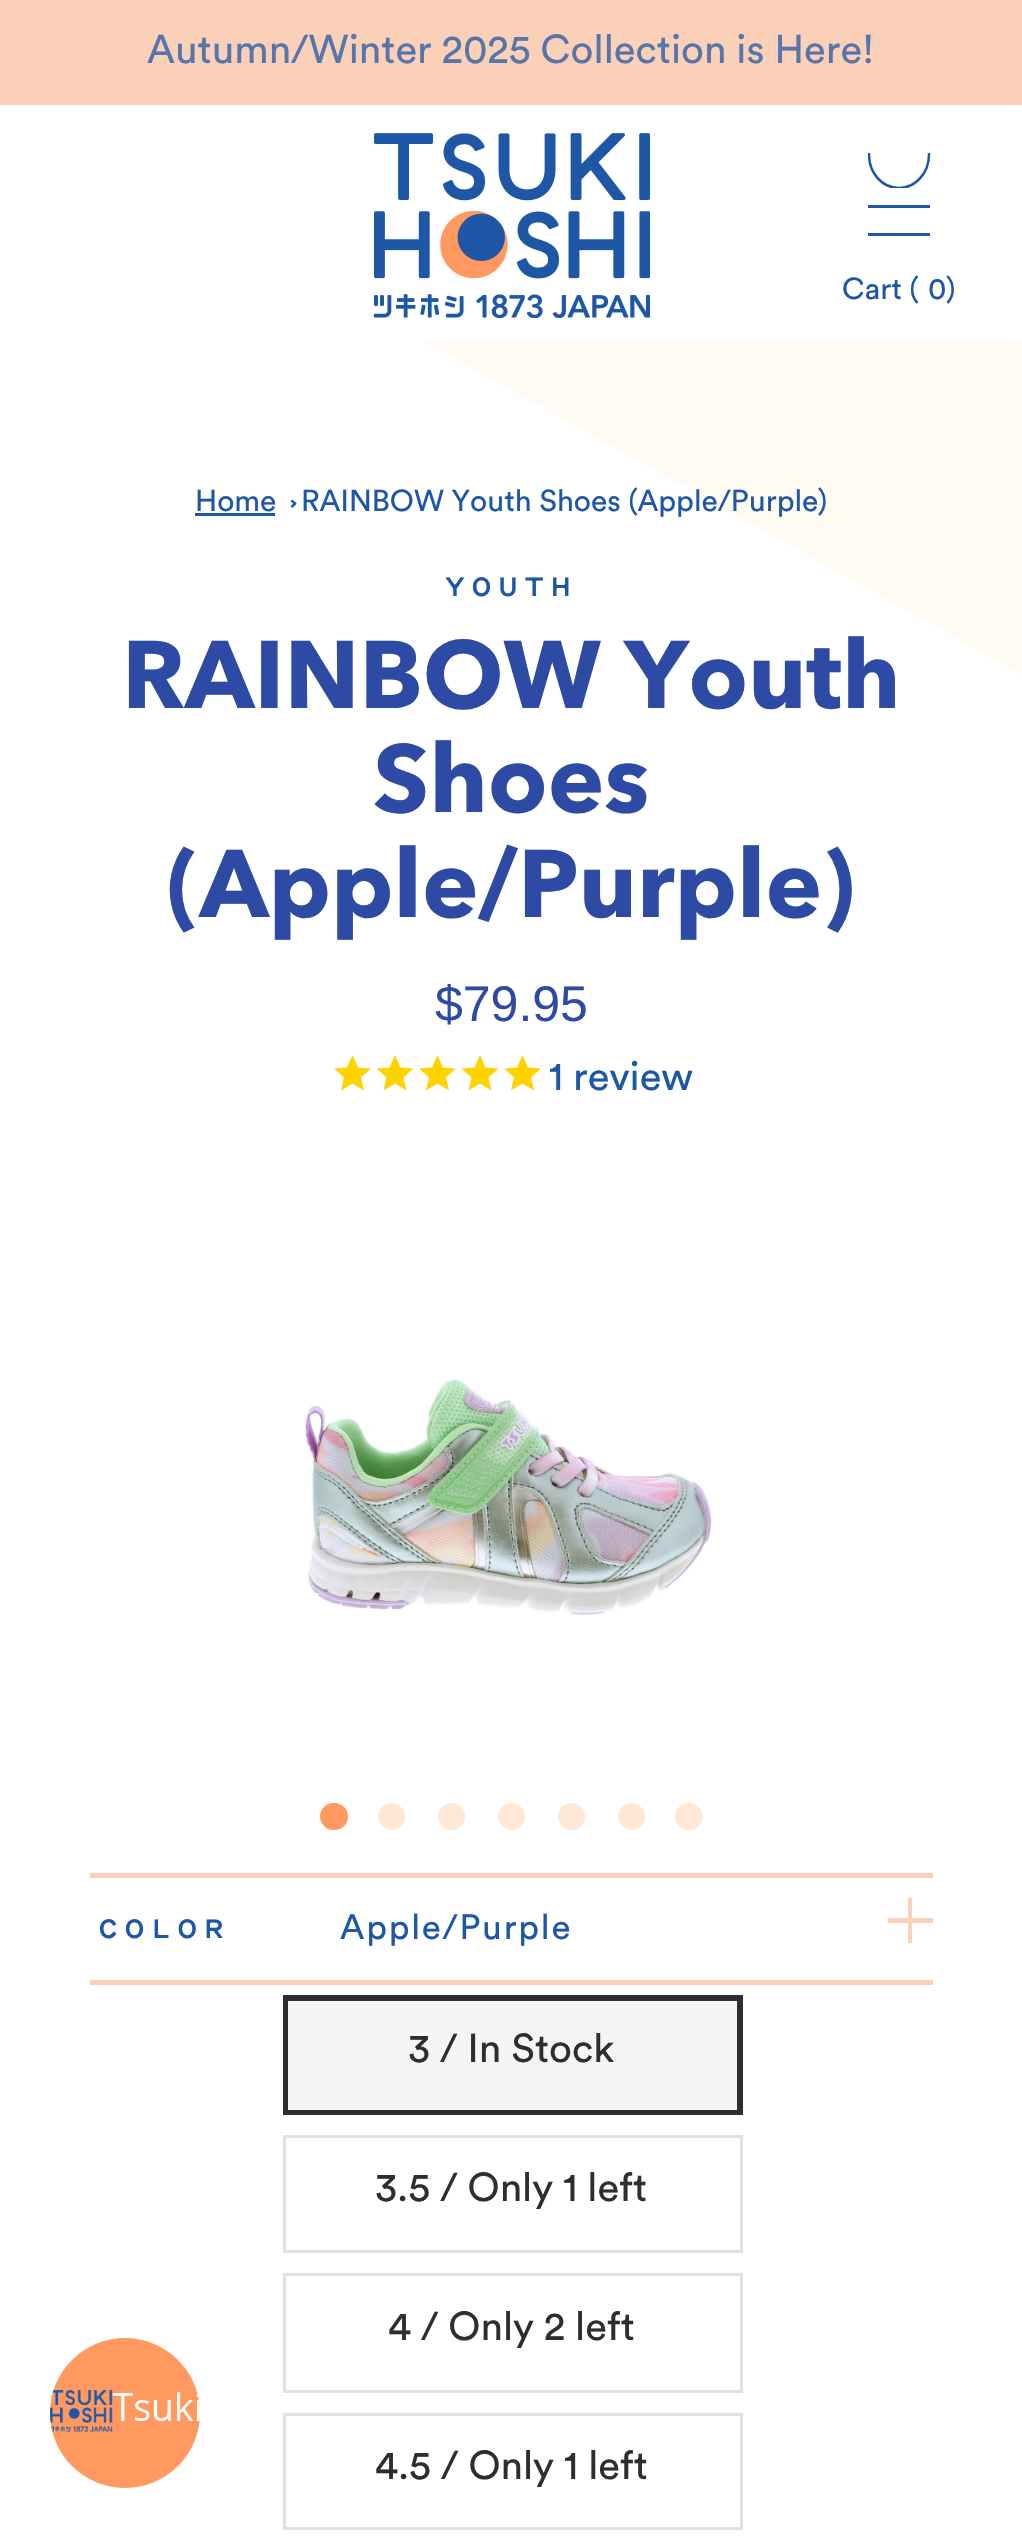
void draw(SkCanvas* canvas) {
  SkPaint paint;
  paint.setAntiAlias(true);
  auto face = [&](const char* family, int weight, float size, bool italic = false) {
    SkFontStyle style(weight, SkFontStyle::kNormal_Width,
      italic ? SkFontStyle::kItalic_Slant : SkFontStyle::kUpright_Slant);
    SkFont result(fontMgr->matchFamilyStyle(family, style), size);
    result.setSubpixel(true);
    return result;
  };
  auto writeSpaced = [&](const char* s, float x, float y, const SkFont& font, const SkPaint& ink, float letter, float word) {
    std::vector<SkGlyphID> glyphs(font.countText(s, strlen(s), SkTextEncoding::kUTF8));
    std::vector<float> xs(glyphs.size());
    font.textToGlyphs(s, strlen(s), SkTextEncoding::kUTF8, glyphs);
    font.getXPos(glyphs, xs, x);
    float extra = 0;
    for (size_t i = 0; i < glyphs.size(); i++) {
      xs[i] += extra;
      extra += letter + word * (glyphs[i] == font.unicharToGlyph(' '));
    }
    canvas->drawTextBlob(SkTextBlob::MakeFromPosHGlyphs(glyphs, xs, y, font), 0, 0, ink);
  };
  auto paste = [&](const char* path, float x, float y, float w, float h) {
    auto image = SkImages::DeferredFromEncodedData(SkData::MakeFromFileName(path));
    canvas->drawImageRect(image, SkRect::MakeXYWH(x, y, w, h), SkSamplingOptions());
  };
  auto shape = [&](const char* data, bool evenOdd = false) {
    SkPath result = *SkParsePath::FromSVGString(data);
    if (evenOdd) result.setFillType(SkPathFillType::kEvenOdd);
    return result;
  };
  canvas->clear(0xffffffff);
  paint.setColor(0xfffbd0b8);
  canvas->drawRect(SkRect::MakeXYWH(0, 0, 1022, 105), paint);
  paint.setColor(0xfffffaf2);
  canvas->drawPath(shape("M0 105H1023V675Z"), paint);
  paint.setColor(0xffffffff);
  canvas->drawRect(SkRect::MakeXYWH(0, 105, 1022, 235), paint);
  paste("img/1.png", 373, 133, 277, 185);
  canvas->save();
  canvas->clipRect(SkRect::MakeXYWH(868, 153, 80, 35));
  paint.setStroke(true);
  paint.setStrokeWidth(2.5f);
  paint.setColor(0xff1f57a7);
  canvas->drawPath(shape("M899 120.5C915.5 120.5 929 135.5 929 154.5C929 173 915.5 188 899 188C882 188 869 173 869 154.5C869 135.5 882 120.5 899 120.5Z"), paint);
  canvas->restore();
  paint.setStroke(false);
  {
    const struct { float x, y, w, h; SkColor color; } items[] = {
      {868, 205, 62, 3, 0xff1f57a7},
      {868, 233, 62, 3, 0xff1f57a7},
      {195, 513, 80, 3, 0xff1f57a7},
    };
    for (auto [x, y, w, h, color] : items) {
      paint.setColor(color);
      canvas->drawRect(SkRect::MakeXYWH(x, y, w, h), paint);
    }
  }
  canvas->drawPath(shape("M292.5 499.5L296.5 503.5L295 505.5L290.5 501Z"), paint);
  canvas->drawPath(shape("M295 502L296.5 503.5L292.5 508L290.5 506Z"), paint);
  paint.setColor(0xffffd200);
  canvas->drawPath(shape("M352.5 1083.5L341 1090.5L344 1077.5L334 1068.5L347 1067.5L352.5 1055L358 1067.5L371 1068.5L361 1077.5L364 1090.5Z"), paint);
  canvas->drawPath(shape("M395 1083.5L383.5 1090.5L386.5 1077.5L376.5 1068.5L389.5 1067.5L395 1055L400.5 1067.5L413.5 1068.5L403.5 1077.5L406.5 1090.5Z"), paint);
  canvas->drawPath(shape("M437.5 1083.5L426 1090.5L429 1077.5L419 1068.5L432 1067.5L437.5 1055L443 1067.5L456 1068.5L446 1077.5L449 1090.5Z"), paint);
  canvas->drawPath(shape("M480 1083.5L468.5 1090.5L471.5 1077.5L461.5 1068.5L474.5 1067.5L480 1055L485.5 1067.5L498.5 1068.5L488.5 1077.5L491.5 1090.5Z"), paint);
  canvas->drawPath(shape("M522.5 1083.5L511 1090.5L514 1077.5L504 1068.5L517 1067.5L522.5 1055L528 1067.5L541 1068.5L531 1077.5L534 1090.5Z"), paint);
  paste("img/2.png", 304, 1378, 408, 237);
  paint.setColor(0xffff995f);
  canvas->drawRoundRect(SkRect::MakeXYWH(320, 1803, 28, 27), 13.5f, 13.5f, paint);
  paint.setColor(0xffffe8d5);
  canvas->drawCircle(391.5f, 1816.5f, 13.5f, paint);
  canvas->drawCircle(451.5f, 1816.5f, 13.5f, paint);
  canvas->drawCircle(511.5f, 1816.5f, 13.5f, paint);
  canvas->drawCircle(571.5f, 1816.5f, 13.5f, paint);
  canvas->drawCircle(631.5f, 1816.5f, 13.5f, paint);
  canvas->drawRoundRect(SkRect::MakeXYWH(675, 1803, 28, 27), 13.5f, 13.5f, paint);
  {
    const struct { float x, y, w, h; SkColor color; } items[] = {
      {90, 1873, 843, 5, 0xfffbd0b8},
      {90, 1980, 843, 5, 0xfffbd0b8},
      {888, 1918, 45, 5, 0xfffbd0b8},
      {908, 1898, 4, 45, 0xfffbd0b8},
      {288, 2001, 449, 109, 0xfff5f5f5},
    };
    for (auto [x, y, w, h, color] : items) {
      paint.setColor(color);
      canvas->drawRect(SkRect::MakeXYWH(x, y, w, h), paint);
    }
  }
  paint.setStroke(true);
  paint.setStrokeWidth(3);
  paint.setColor(0xff2e2e2e);
  canvas->drawRect(SkRect::MakeXYWH(284.5f, 1996.5f, 457, 117), paint);
  canvas->drawRect(SkRect::MakeXYWH(286.5f, 1999.5f, 452, 112), paint);
  paint.setColor(0xffe0e0e0);
  canvas->drawRect(SkRect::MakeXYWH(284.5f, 2136.5f, 457, 115), paint);
  canvas->drawRect(SkRect::MakeXYWH(284.5f, 2274.5f, 457, 117), paint);
  canvas->drawRect(SkRect::MakeXYWH(284.5f, 2414.5f, 457, 114), paint);
  paint.setStroke(false);
  paint.setColor(0xffff995f);
  canvas->drawCircle(125, 2413, 75, paint);
  paste("img/3.png", 50, 2390, 150, 43);
  auto f0 = face("Circular", 400, 40);
  paint.setColor(0xff5675ab);
  canvas->drawString("Autumn/Winter 2025 Collection is Here!", 147, 63, f0, paint);
  auto f1 = face("Circular", 400, 30);
  paint.setColor(0xff1f57a7);
  {
    const struct { const char* s; float x, y; } items[] = {
      {"Cart (", 842, 299},
      {"0)", 928, 299},
      {"Home", 195, 511},
      {"RAINBOW Youth Shoes (Apple/Purple)", 301, 511},
    };
    for (auto [s, x, y] : items) {
      canvas->drawString(s, x, y, f1, paint);
    }
  }
  auto f2 = face("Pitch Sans", 700, 32.5f);
  writeSpaced("YOUTH", 445, 596, f2, paint, 6.5f, 0);
  auto f3 = face("Avenir Next", 700, 95);
  paint.setColor(0xff2d4aa5);
  {
    const struct { const char* s; float x, y; } items[] = {
      {"RAINBOW Youth", 122, 708},
      {"Shoes", 373, 812},
      {"(Apple/Purple)", 167, 917},
    };
    for (auto [s, x, y] : items) {
      canvas->drawString(s, x, y, f3, paint);
    }
  }
  auto f4 = face("Liberation Sans", 400, 50);
  canvas->drawString("$79.95", 435, 1021, f4, paint);
  paint.setColor(0xff1f57a7);
  canvas->drawString("1 review", 549, 1090, f0, paint);
  writeSpaced("COLOR", 98, 1938, f2, paint, 6.5f, 0);
  auto f5 = face("Circular", 400, 35);
  writeSpaced("Apple/Purple", 340, 1939, f5, paint, 1.75f, 0);
  paint.setColor(0xff2e2e2e);
  {
    const struct { const char* s; float x, y; } items[] = {
      {"3 / In Stock", 408, 2062},
      {"3.5 / Only 1 left", 375, 2201},
      {"4 / Only 2 left", 388, 2340},
      {"4.5 / Only 1 left", 375, 2479},
    };
    for (auto [s, x, y] : items) {
      canvas->drawString(s, x, y, f0, paint);
    }
  }
}
